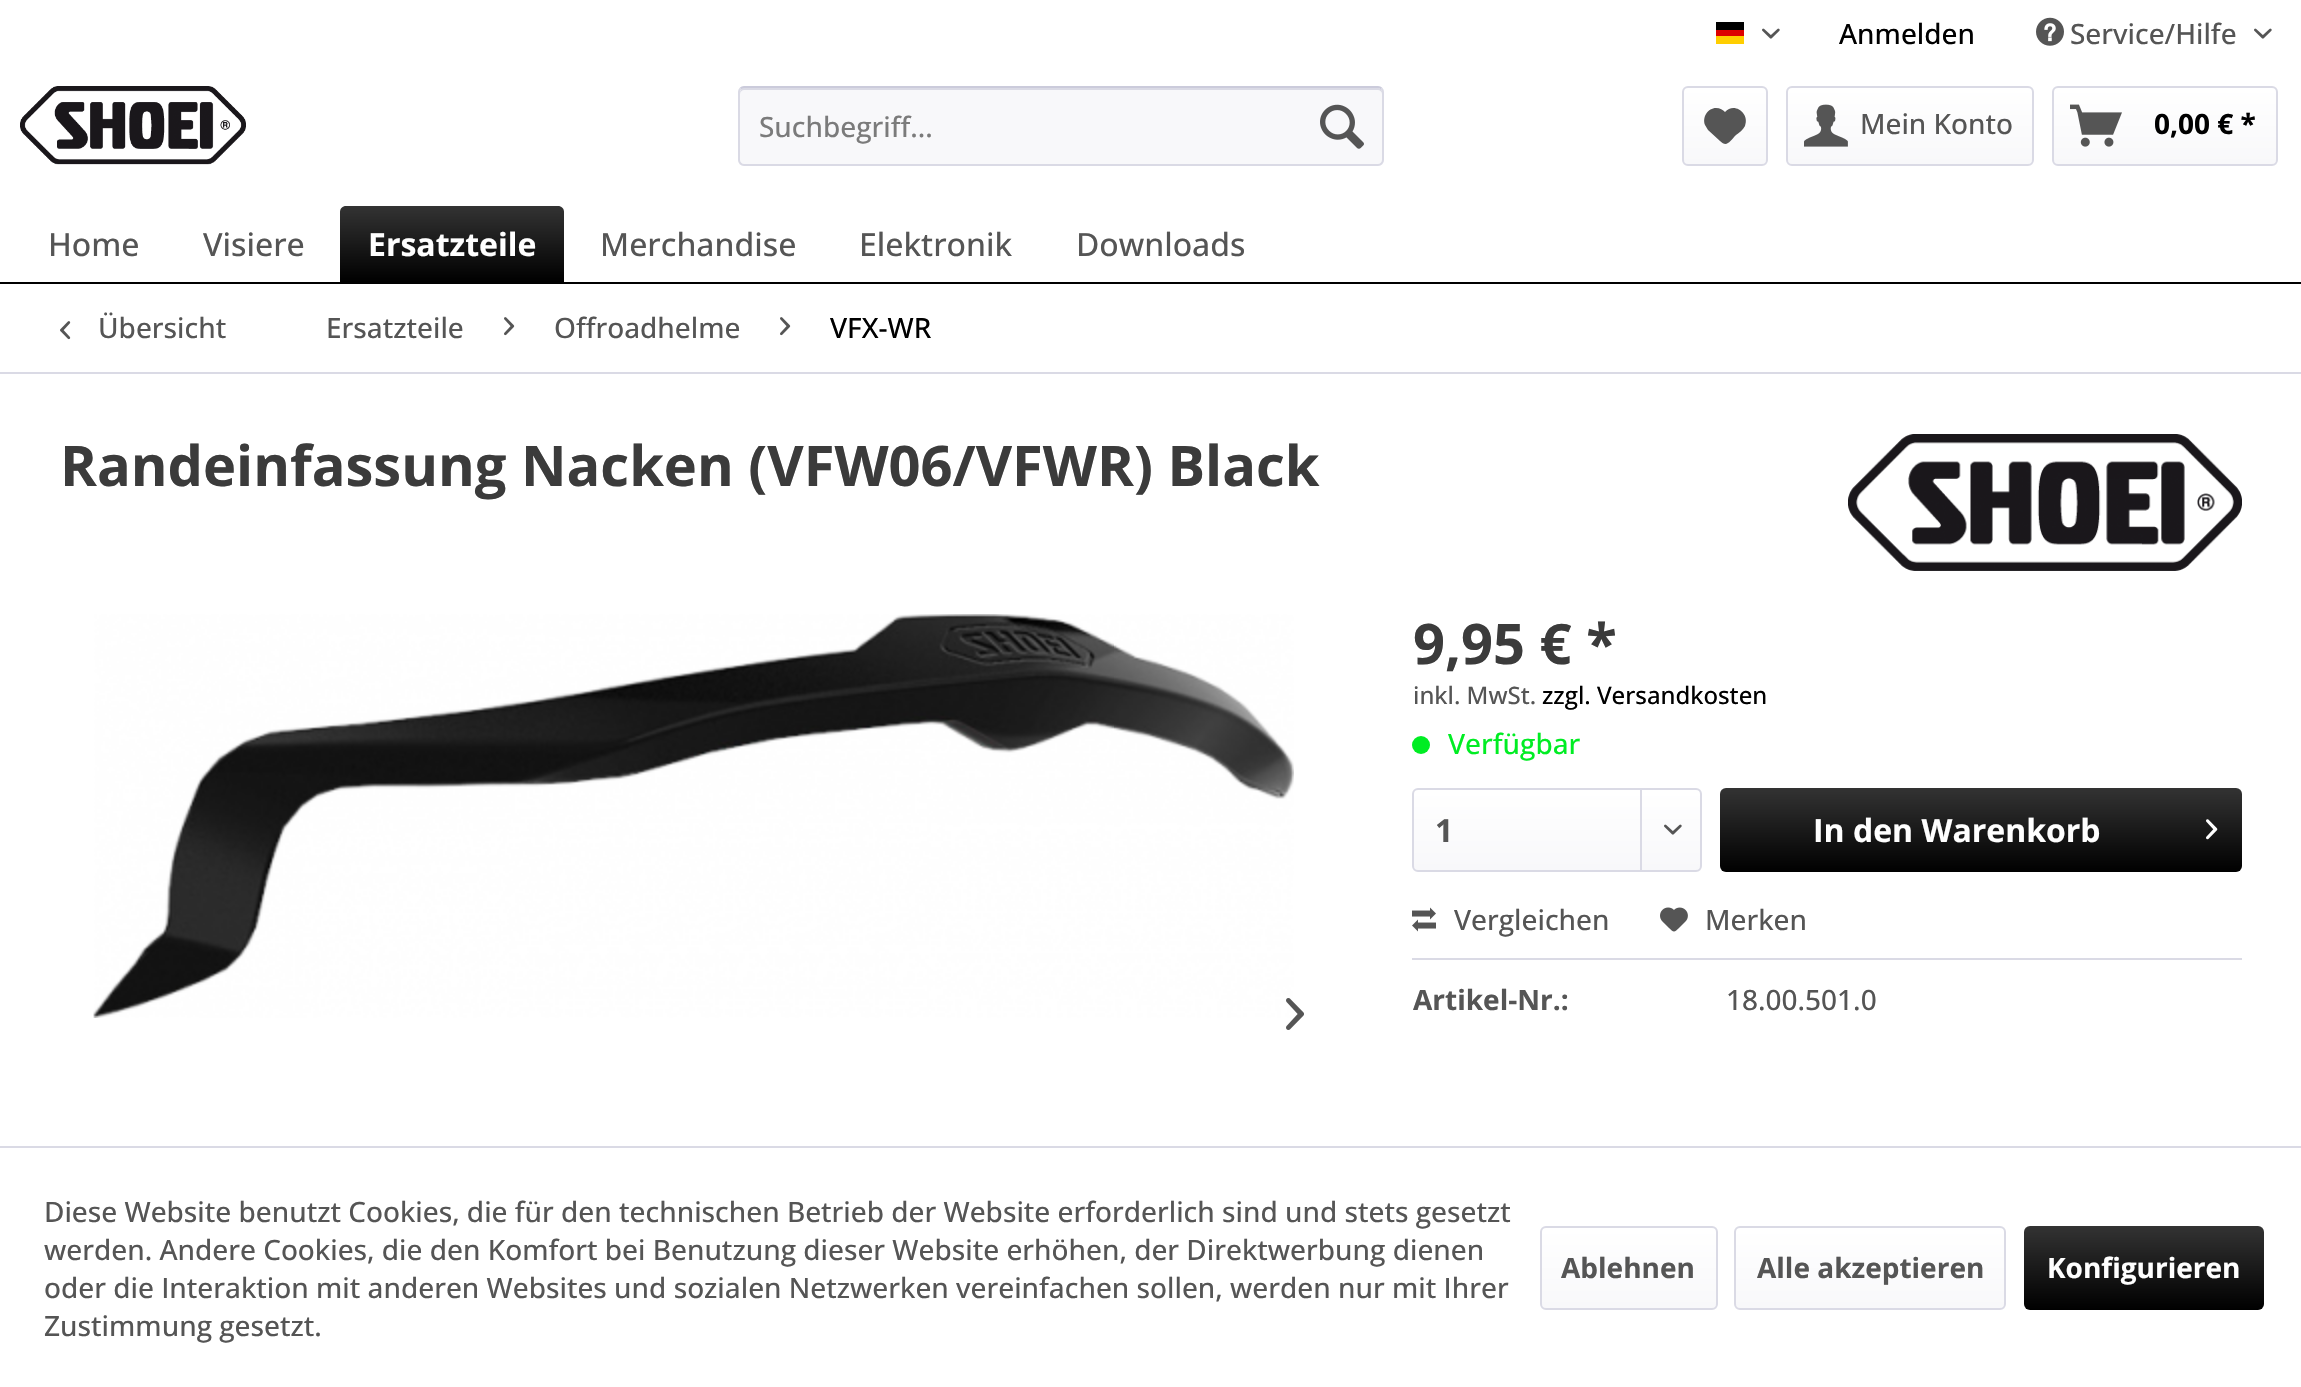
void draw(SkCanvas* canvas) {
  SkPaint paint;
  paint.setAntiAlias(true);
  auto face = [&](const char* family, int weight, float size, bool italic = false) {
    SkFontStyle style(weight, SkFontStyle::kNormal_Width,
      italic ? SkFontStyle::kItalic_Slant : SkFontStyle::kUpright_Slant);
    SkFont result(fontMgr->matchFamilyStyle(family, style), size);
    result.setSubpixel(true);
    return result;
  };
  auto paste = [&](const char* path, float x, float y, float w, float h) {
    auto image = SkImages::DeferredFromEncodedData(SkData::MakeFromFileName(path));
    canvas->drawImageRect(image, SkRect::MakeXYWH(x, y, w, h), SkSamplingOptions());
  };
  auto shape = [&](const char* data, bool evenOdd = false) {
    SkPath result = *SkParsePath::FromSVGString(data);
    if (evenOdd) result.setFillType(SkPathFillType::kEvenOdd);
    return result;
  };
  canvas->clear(0xffffffff);
  {
    const struct { float x, y, w, h; SkColor color; } items[] = {
      {1716, 22, 28, 8, 0xff000000},
      {1716, 30, 28, 6, 0xffdd0000},
      {1716, 36, 28, 8, 0xffffce00},
    };
    for (auto [x, y, w, h, color] : items) {
      paint.setColor(color);
      canvas->drawRect(SkRect::MakeXYWH(x, y, w, h), paint);
    }
  }
  paste("img/1.png", 1762, 28, 18, 11);
  paste("img/2.png", 2036, 17, 28, 29);
  paste("img/1.png", 2254, 28, 18, 11);
  paste("img/3.png", 20, 86, 226, 79);
  paint.setColor(0xfff8f8fa);
  canvas->drawRoundRect(SkRect::MakeXYWH(738, 86, 646, 80), 6, 6, paint);
  paint.setColor(0xffdadae5);
  canvas->drawPath(shape("M744 90H1378C1380 90 1382 92 1382 94C1382 91 1382 88 1378 88H742L741 90C740 91 740 93 740 94C740 92 742 90 744 90Z"), paint);
  paint.setStroke(true);
  paint.setStrokeWidth(2);
  paint.setColor(0xffcbcbdb);
  canvas->drawPath(shape("M740.5 88.5C741.5 87.5 742.5 87 744 87H1378C1379.5 87 1380.5 87.5 1381.5 88.5"), paint);
  paint.setColor(0xffdadae5);
  canvas->drawPath(shape("M1381.5 88.5C1382.5 89.5 1383 90.5 1383 92V160C1383 161.5 1382.5 162.5 1381.5 163.5C1380.5 164.5 1379.5 165 1378 165H744C742.5 165 741.5 164.5 740.5 163.5C739.5 162.5 739 161.5 739 160V92C739 90.5 739.5 89.5 740.5 88.5"), paint);
  paste("img/4.png", 1320, 104, 44, 45);
  paint.setStroke(false);
  {
    const SkColor colors[] = {0xffffffff, 0xfff8f8fa};
    const float stops[] = {0, 1};
    const SkPoint ends[] = {{1725, 88}, {1725, 164}};
    paint.setShader(SkGradientShader::MakeLinear(ends, colors, stops, 2, SkTileMode::kClamp));
    paint.setAlpha(255);
  }
  canvas->drawRoundRect(SkRect::MakeXYWH(1684, 88, 82, 76), 4, 4, paint);
  paint.setStroke(true);
  paint.setShader(nullptr);
  paint.setColor(0xffdadae5);
  canvas->drawRoundRect(SkRect::MakeXYWH(1683, 87, 84, 78), 5, 5, paint);
  paint.setStroke(false);
  paint.setColor(0xff555555);
  canvas->drawPath(shape("M1716 108C1708 108 1702 117 1705 125L1708 130L1720 141C1727 148 1730 141 1736 135C1739 133 1743 130 1745 126C1750 113 1734 102 1725 112C1723 110 1720 108 1716 108Z"), paint);
  {
    const SkColor colors[] = {0xffffffff, 0xfff8f8fa};
    const float stops[] = {0, 1};
    const SkPoint ends[] = {{1910, 88}, {1910, 164}};
    paint.setShader(SkGradientShader::MakeLinear(ends, colors, stops, 2, SkTileMode::kClamp));
    paint.setAlpha(255);
  }
  canvas->drawRoundRect(SkRect::MakeXYWH(1788, 88, 244, 76), 4, 4, paint);
  paint.setStroke(true);
  paint.setShader(nullptr);
  paint.setColor(0xffdadae5);
  canvas->drawRoundRect(SkRect::MakeXYWH(1787, 87, 246, 78), 5, 5, paint);
  paste("img/5.png", 1804, 104, 44, 43);
  paint.setStroke(false);
  {
    const SkColor colors[] = {0xffffffff, 0xfff8f8fa};
    const float stops[] = {0, 1};
    const SkPoint ends[] = {{2165, 88}, {2165, 164}};
    paint.setShader(SkGradientShader::MakeLinear(ends, colors, stops, 2, SkTileMode::kClamp));
    paint.setAlpha(255);
  }
  canvas->drawRoundRect(SkRect::MakeXYWH(2054, 88, 222, 76), 4, 4, paint);
  paint.setStroke(true);
  paint.setShader(nullptr);
  paint.setColor(0xffdadae5);
  canvas->drawRoundRect(SkRect::MakeXYWH(2053, 87, 224, 78), 5, 5, paint);
  paste("img/6.png", 2070, 104, 52, 43);
  paint.setStroke(false);
  paint.setColor(0xff000000);
  canvas->drawRect(SkRect::MakeXYWH(0, 282, 2301, 2), paint);
  {
    const SkColor colors[] = {0xff333333, 0xff000000};
    const float stops[] = {0, 1};
    const SkPoint ends[] = {{452, 206}, {452, 282}};
    paint.setShader(SkGradientShader::MakeLinear(ends, colors, stops, 2, SkTileMode::kClamp));
    paint.setAlpha(255);
  }
  canvas->drawPath(shape("M346 206H558C561.5 206 564 208.5 564 212V282H340V212C340 208.5 342.5 206 346 206Z"), paint);
  paint.setShader(nullptr);
  paint.setColor(0xffdadae5);
  canvas->drawRect(SkRect::MakeXYWH(0, 372, 2301, 2), paint);
  paste("img/7.png", 60, 321, 11, 19);
  paste("img/8.png", 504, 317, 11, 19);
  paste("img/8.png", 780, 317, 11, 19);
  paste("img/9.png", 1848, 434, 394, 137);
  paste("img/10.png", 93, 614, 1201, 404);
  paste("img/11.png", 1286, 998, 18, 32);
  paint.setColor(0xff00ed23);
  canvas->drawCircle(1421, 745, 9, paint);
  {
    const SkColor colors[] = {0xffffffff, 0xfff8f8fa};
    const float stops[] = {0, 1};
    const SkPoint ends[] = {{1557, 790}, {1557, 870}};
    paint.setShader(SkGradientShader::MakeLinear(ends, colors, stops, 2, SkTileMode::kClamp));
    paint.setAlpha(255);
  }
  canvas->drawRoundRect(SkRect::MakeXYWH(1414, 790, 286, 80), 4, 4, paint);
  paint.setStroke(true);
  paint.setShader(nullptr);
  paint.setColor(0xffdadae5);
  canvas->drawRoundRect(SkRect::MakeXYWH(1413, 789, 288, 82), 5, 5, paint);
  paint.setStroke(false);
  canvas->drawRect(SkRect::MakeXYWH(1640, 790, 2, 80), paint);
  paste("img/12.png", 1664, 824, 18, 11);
  {
    const SkColor colors[] = {0xff333333, 0xff000000};
    const float stops[] = {0, 1};
    const SkPoint ends[] = {{1981, 788}, {1981, 872}};
    paint.setShader(SkGradientShader::MakeLinear(ends, colors, stops, 2, SkTileMode::kClamp));
    paint.setAlpha(255);
  }
  canvas->drawRoundRect(SkRect::MakeXYWH(1720, 788, 522, 84), 6, 6, paint);
  paste("img/13.png", 2206, 819, 12, 21);
  paint.setShader(nullptr);
  paint.setColor(0xffdadae5);
  canvas->drawRect(SkRect::MakeXYWH(1412, 958, 830, 2), paint);
  paste("img/14.png", 1412, 907, 24, 25);
  paste("img/15.png", 1660, 907, 28, 25);
  canvas->drawRect(SkRect::MakeXYWH(0, 1146, 2301, 2), paint);
  {
    const SkColor colors[] = {0xffffffff, 0xfff8f8fa};
    const float stops[] = {0, 1};
    const SkPoint ends[] = {{1629, 1228}, {1629, 1308}};
    paint.setShader(SkGradientShader::MakeLinear(ends, colors, stops, 2, SkTileMode::kClamp));
    paint.setAlpha(255);
  }
  canvas->drawRoundRect(SkRect::MakeXYWH(1542, 1228, 174, 80), 4, 4, paint);
  paint.setStroke(true);
  paint.setShader(nullptr);
  paint.setColor(0xffdadae5);
  canvas->drawRoundRect(SkRect::MakeXYWH(1541, 1227, 176, 82), 5, 5, paint);
  paint.setStroke(false);
  {
    const SkColor colors[] = {0xffffffff, 0xfff8f8fa};
    const float stops[] = {0, 1};
    const SkPoint ends[] = {{1870, 1228}, {1870, 1308}};
    paint.setShader(SkGradientShader::MakeLinear(ends, colors, stops, 2, SkTileMode::kClamp));
    paint.setAlpha(255);
  }
  canvas->drawRoundRect(SkRect::MakeXYWH(1736, 1228, 268, 80), 4, 4, paint);
  paint.setStroke(true);
  paint.setShader(nullptr);
  paint.setColor(0xffdadae5);
  canvas->drawRoundRect(SkRect::MakeXYWH(1735, 1227, 270, 82), 5, 5, paint);
  paint.setStroke(false);
  {
    const SkColor colors[] = {0xff333333, 0xff000000};
    const float stops[] = {0, 1};
    const SkPoint ends[] = {{2144, 1226}, {2144, 1310}};
    paint.setShader(SkGradientShader::MakeLinear(ends, colors, stops, 2, SkTileMode::kClamp));
    paint.setAlpha(255);
  }
  canvas->drawRoundRect(SkRect::MakeXYWH(2024, 1226, 240, 84), 6, 6, paint);
  auto f0 = face("Open Sans", 500, 28);
  paint.setShader(nullptr);
  paint.setColor(0xff000000);
  canvas->drawString("Anmelden", 1839, 44, f0, paint);
  paint.setColor(0xff555555);
  canvas->drawString("Service/Hilfe", 2070, 44, f0, paint);
  paint.setColor(0xff7b7b7b);
  canvas->drawString("Suchbegriff...", 759, 137, f0, paint);
  paint.setColor(0xff555555);
  canvas->drawString("Mein Konto", 1860, 134, f0, paint);
  auto f1 = face("Open Sans", 700, 28);
  paint.setColor(0xff000000);
  canvas->drawString("0,00 € *", 2154, 134, f1, paint);
  auto f2 = face("Open Sans", 500, 32);
  paint.setColor(0xff555555);
  canvas->drawString("Home", 48, 256, f2, paint);
  canvas->drawString("Visiere", 203, 256, f2, paint);
  auto f3 = face("Open Sans", 700, 32);
  paint.setColor(0xffffffff);
  canvas->drawString("Ersatzteile", 368, 256, f3, paint);
  paint.setColor(0xff555555);
  {
    const struct { const char* s; float x, y; } items[] = {
      {"Merchandise", 600, 256},
      {"Elektronik", 859, 256},
      {"Downloads", 1076, 256},
    };
    for (auto [s, x, y] : items) {
      canvas->drawString(s, x, y, f2, paint);
    }
  }
  {
    const struct { const char* s; float x, y; } items[] = {
      {"Übersicht", 98, 338},
      {"Ersatzteile", 326, 338},
      {"Offroadhelme", 554, 338},
    };
    for (auto [s, x, y] : items) {
      canvas->drawString(s, x, y, f0, paint);
    }
  }
  paint.setColor(0xff000000);
  canvas->drawString("VFX-WR", 830, 338, f0, paint);
  auto f4 = face("Open Sans", 700, 56);
  paint.setColor(0xff3b3b3b);
  canvas->drawString("Randeinfassung Nacken (VFW06/VFWR) Black", 60, 486, f4, paint);
  canvas->drawString("9,95 € *", 1413, 664, f4, paint);
  auto f5 = face("Open Sans", 500, 24);
  paint.setColor(0xff555555);
  canvas->drawString("inkl. MwSt.", 1413, 704, f5, paint);
  paint.setColor(0xff000000);
  canvas->drawString("zzgl. Versandkosten", 1542, 704, f5, paint);
  paint.setColor(0xff00ed23);
  canvas->drawString("Verfügbar", 1448, 754, f0, paint);
  paint.setColor(0xff555555);
  canvas->drawString("1", 1435, 842, f3, paint);
  paint.setColor(0xffffffff);
  canvas->drawString("In den Warenkorb", 1813, 842, f3, paint);
  paint.setColor(0xff555555);
  canvas->drawString("Vergleichen", 1454, 930, f0, paint);
  canvas->drawString("Merken", 1705, 930, f0, paint);
  canvas->drawString("Artikel-Nr.:", 1413, 1010, f1, paint);
  {
    const struct { const char* s; float x, y; } items[] = {
      {"18.00.501.0", 1726, 1010},
      {"Diese Website benutzt Cookies, die für den technischen Betrieb der Website erforderlich sind und stets gesetzt", 44, 1222},
      {"werden. Andere Cookies, die den Komfort bei Benutzung dieser Website erhöhen, der Direktwerbung dienen", 44, 1260},
      {"oder die Interaktion mit anderen Websites und sozialen Netzwerken vereinfachen sollen, werden nur mit Ihrer", 44, 1298},
      {"Zustimmung gesetzt.", 44, 1336},
    };
    for (auto [s, x, y] : items) {
      canvas->drawString(s, x, y, f0, paint);
    }
  }
  canvas->drawString("Ablehnen", 1561, 1278, f1, paint);
  canvas->drawString("Alle akzeptieren", 1757, 1278, f1, paint);
  paint.setColor(0xffffffff);
  canvas->drawString("Konfigurieren", 2047, 1278, f1, paint);
}
